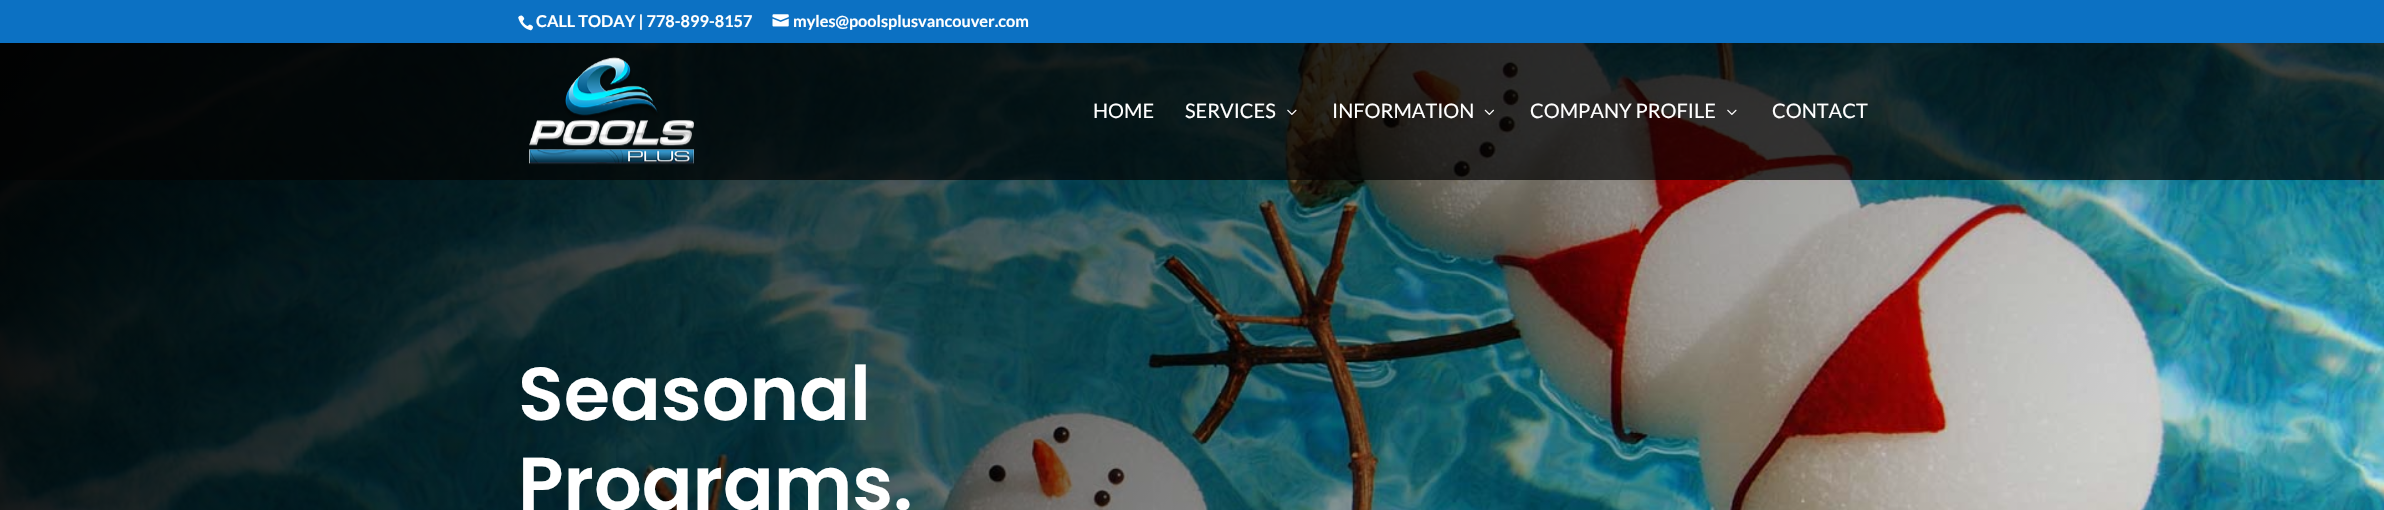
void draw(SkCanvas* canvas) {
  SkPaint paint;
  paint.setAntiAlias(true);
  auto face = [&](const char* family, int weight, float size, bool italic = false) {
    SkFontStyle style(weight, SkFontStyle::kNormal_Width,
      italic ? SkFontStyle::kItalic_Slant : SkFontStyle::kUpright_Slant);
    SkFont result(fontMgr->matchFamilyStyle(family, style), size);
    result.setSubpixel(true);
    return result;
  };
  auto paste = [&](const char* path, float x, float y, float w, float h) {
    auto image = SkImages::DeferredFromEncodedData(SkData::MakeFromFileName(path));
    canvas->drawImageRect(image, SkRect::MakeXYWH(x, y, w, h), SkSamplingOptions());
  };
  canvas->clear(0xffffffff);
  paint.setColor(0xff0c71c3);
  canvas->drawRect(SkRect::MakeXYWH(0, 0, 2384, 43), paint);
  paste("img/1.png", 518, 15, 15, 16);
  paste("img/2.png", 772, 14, 17, 13);
  paste("img/7.png", 0, 43, 2384, 467);
  paint.setColor(0xb3020202);
  canvas->drawRect(SkRect::MakeXYWH(0, 43, 2384, 137), paint);
  paste("img/3.png", 529, 57, 165, 108);
  paste("img/4.png", 1287, 109, 10, 6);
  paste("img/5.png", 1484, 109, 10, 6);
  paste("img/6.png", 1727, 109, 10, 6);
  auto f0 = face("Lato", 700, 16.25f);
  paint.setColor(0xffffffff);
  canvas->drawString("CALL TODAY | 778-899-8157", 536, 27, f0, paint);
  canvas->drawString("myles@poolsplusvancouver.com", 793, 27, f0, paint);
  auto f1 = face("Lato", 400, 20);
  {
    const struct { const char* s; float x, y; } items[] = {
      {"HOME", 1093, 118},
      {"SERVICES", 1185, 118},
      {"INFORMATION", 1332, 118},
      {"COMPANY PROFILE", 1530, 118},
      {"CONTACT", 1772, 118},
    };
    for (auto [s, x, y] : items) {
      canvas->drawString(s, x, y, f1, paint);
    }
  }
  auto f2 = face("Poppins", 600, 75);
  canvas->drawString("Seasonal", 518, 420, f2, paint);
  canvas->drawString("Programs.", 518, 510, f2, paint);
}
